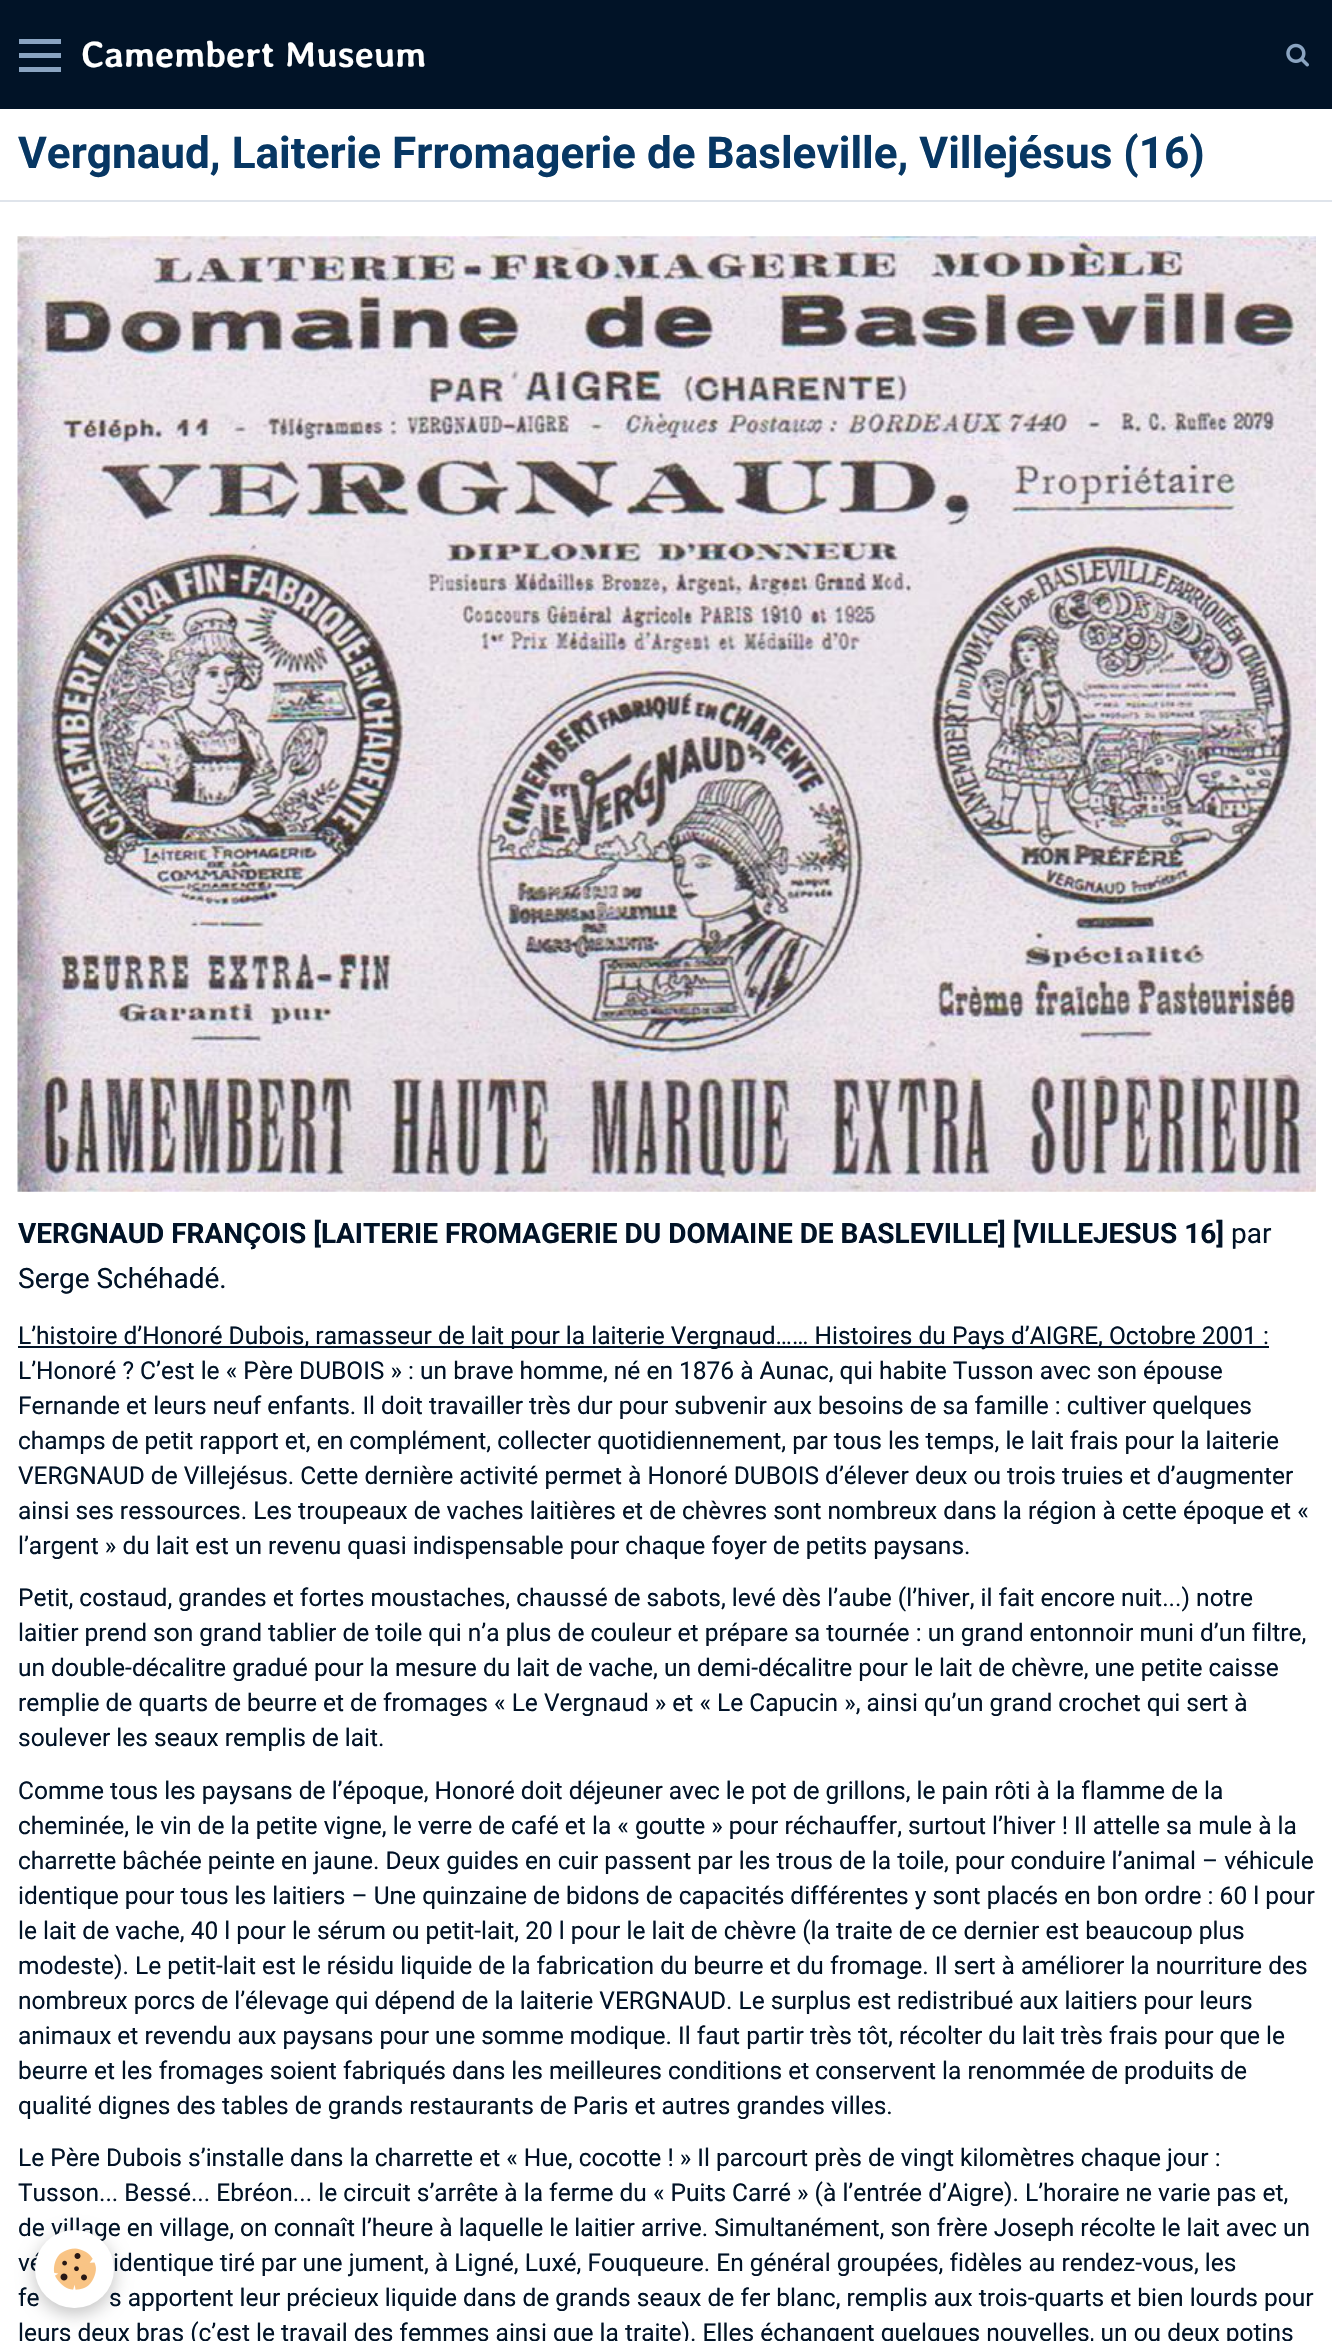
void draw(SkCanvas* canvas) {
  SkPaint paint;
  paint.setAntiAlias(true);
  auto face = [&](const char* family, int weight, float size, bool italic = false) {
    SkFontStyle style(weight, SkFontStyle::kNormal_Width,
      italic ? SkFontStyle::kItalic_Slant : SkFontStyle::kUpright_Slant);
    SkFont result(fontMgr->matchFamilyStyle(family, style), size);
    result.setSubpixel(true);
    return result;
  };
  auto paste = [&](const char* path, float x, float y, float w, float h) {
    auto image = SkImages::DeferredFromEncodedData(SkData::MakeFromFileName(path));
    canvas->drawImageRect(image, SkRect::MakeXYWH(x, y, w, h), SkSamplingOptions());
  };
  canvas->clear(0xffffffff);
  {
    const struct { float x, y, w, h; SkColor color; } items[] = {
      {0, 0, 1332, 109, 0xff011327},
      {19, 53, 42, 5, 0xff8aa4c1},
      {19, 39, 42, 5, 0xff8aa4c1},
      {19, 67, 42, 5, 0xff8aa4c1},
    };
    for (auto [x, y, w, h, color] : items) {
      paint.setColor(color);
      canvas->drawRect(SkRect::MakeXYWH(x, y, w, h), paint);
    }
  }
  paste("img/1.png", 1286, 43, 23, 24);
  paint.setColor(0xffdfe4eb);
  canvas->drawRect(SkRect::MakeXYWH(0, 200, 1332, 2), paint);
  paste("img/2.png", 17, 236, 1299, 956);
  paint.setColor(0xff011327);
  canvas->drawRect(SkRect::MakeXYWH(18, 1346, 1251, 2), paint);
  paint.setColor(0x3d000000);
  paint.setMaskFilter(SkMaskFilter::MakeBlur(kNormal_SkBlurStyle, 9));
  canvas->drawRoundRect(SkRect::MakeXYWH(35, 2235, 79, 79), 39.5f, 39.5f, paint);
  paint.setMaskFilter(nullptr);
  auto f0 = face("Averia Libre", 700, 36.75f);
  paint.setColor(0xffffffff);
  canvas->drawString("Camembert Museum", 81, 67, f0, paint);
  auto f1 = face("Roboto", 700, 44.1f);
  paint.setColor(0xff073763);
  canvas->drawString("Vergnaud, Laiterie Frromagerie de Basleville, Villejésus (16)", 18, 168, f1, paint);
  auto f2 = face("Roboto", 700, 28);
  paint.setColor(0xff011327);
  canvas->drawString("VERGNAUD FRANÇOIS [LAITERIE FROMAGERIE DU DOMAINE DE BASLEVILLE] [VILLEJESUS 16]", 18, 1243, f2, paint);
  auto f3 = face("Roboto", 400, 28);
  canvas->drawString("par", 1231, 1243, f3, paint);
  canvas->drawString("Serge Schéhadé.", 18, 1288, f3, paint);
  auto f4 = face("Roboto", 400, 24.5f);
  {
    const struct { const char* s; float x, y; } items[] = {
      {"L’histoire d’Honoré Dubois, ramasseur de lait pour la laiterie Vergnaud…… Histoires du Pays d’AIGRE, Octobre 2001 :", 18, 1344},
      {"L’Honoré ? C’est le « Père DUBOIS » : un brave homme, né en 1876 à Aunac, qui habite Tusson avec son épouse", 18, 1379},
      {"Fernande et leurs neuf enfants. Il doit travailler très dur pour subvenir aux besoins de sa famille : cultiver quelques", 18, 1414},
      {"champs de petit rapport et, en complément, collecter quotidiennement, par tous les temps, le lait frais pour la laiterie", 18, 1449},
      {"VERGNAUD de Villejésus. Cette dernière activité permet à Honoré DUBOIS d’élever deux ou trois truies et d’augmenter", 18, 1484},
      {"ainsi ses ressources. Les troupeaux de vaches laitières et de chèvres sont nombreux dans la région à cette époque et «", 18, 1519},
      {"l’argent » du lait est un revenu quasi indispensable pour chaque foyer de petits paysans.", 18, 1554},
      {"Petit, costaud, grandes et fortes moustaches, chaussé de sabots, levé dès l’aube (l’hiver, il fait encore nuit...) notre", 18, 1606},
      {"laitier prend son grand tablier de toile qui n’a plus de couleur et prépare sa tournée : un grand entonnoir muni d’un filtre,", 18, 1641},
      {"un double-décalitre gradué pour la mesure du lait de vache, un demi-décalitre pour le lait de chèvre, une petite caisse", 18, 1676},
      {"remplie de quarts de beurre et de fromages « Le Vergnaud » et « Le Capucin », ainsi qu’un grand crochet qui sert à", 18, 1711},
      {"soulever les seaux remplis de lait.", 18, 1746},
      {"Comme tous les paysans de l’époque, Honoré doit déjeuner avec le pot de grillons, le pain rôti à la flamme de la", 18, 1799},
      {"cheminée, le vin de la petite vigne, le verre de café et la « goutte » pour réchauffer, surtout l’hiver ! Il attelle sa mule à la", 18, 1834},
      {"charrette bâchée peinte en jaune. Deux guides en cuir passent par les trous de la toile, pour conduire l’animal – véhicule", 18, 1869},
      {"identique pour tous les laitiers – Une quinzaine de bidons de capacités différentes y sont placés en bon ordre : 60 l pour", 18, 1904},
      {"le lait de vache, 40 l pour le sérum ou petit-lait, 20 l pour le lait de chèvre (la traite de ce dernier est beaucoup plus", 18, 1939},
      {"modeste). Le petit-lait est le résidu liquide de la fabrication du beurre et du fromage. Il sert à améliorer la nourriture des", 18, 1974},
      {"nombreux porcs de l’élevage qui dépend de la laiterie VERGNAUD. Le surplus est redistribué aux laitiers pour leurs", 18, 2009},
      {"animaux et revendu aux paysans pour une somme modique. Il faut partir très tôt, récolter du lait très frais pour que le", 18, 2044},
      {"beurre et les fromages soient fabriqués dans les meilleures conditions et conservent la renommée de produits de", 18, 2079},
      {"qualité dignes des tables de grands restaurants de Paris et autres grandes villes.", 18, 2114},
      {"Le Père Dubois s’installe dans la charrette et « Hue, cocotte ! » Il parcourt près de vingt kilomètres chaque jour :", 18, 2166},
      {"Tusson... Bessé... Ebréon... le circuit s’arrête à la ferme du « Puits Carré » (à l’entrée d’Aigre). L’horaire ne varie pas et,", 18, 2201},
      {"de village en village, on connaît l’heure à laquelle le laitier arrive. Simultanément, son frère Joseph récolte le lait avec un", 18, 2236},
      {"vé", 18, 2271},
      {"identique tiré par une jument, à Ligné, Luxé, Fouqueure. En général groupées, fidèles au rendez-vous, les", 113, 2271},
      {"fe", 18, 2306},
      {"s apportent leur précieux liquide dans de grands seaux de fer blanc, remplis aux trois-quarts et bien lourds pour", 109, 2306},
      {"leurs deux bras (c’est le travail des femmes ainsi que la traite). Elles échangent quelques nouvelles, un ou deux potins", 18, 2341},
    };
    for (auto [s, x, y] : items) {
      canvas->drawString(s, x, y, f4, paint);
    }
  }
  paint.setColor(0xffffffff);
  canvas->drawRoundRect(SkRect::MakeXYWH(35, 2230, 79, 78), 39, 39, paint);
  paste("img/3.png", 53, 2248, 43, 42);
}
